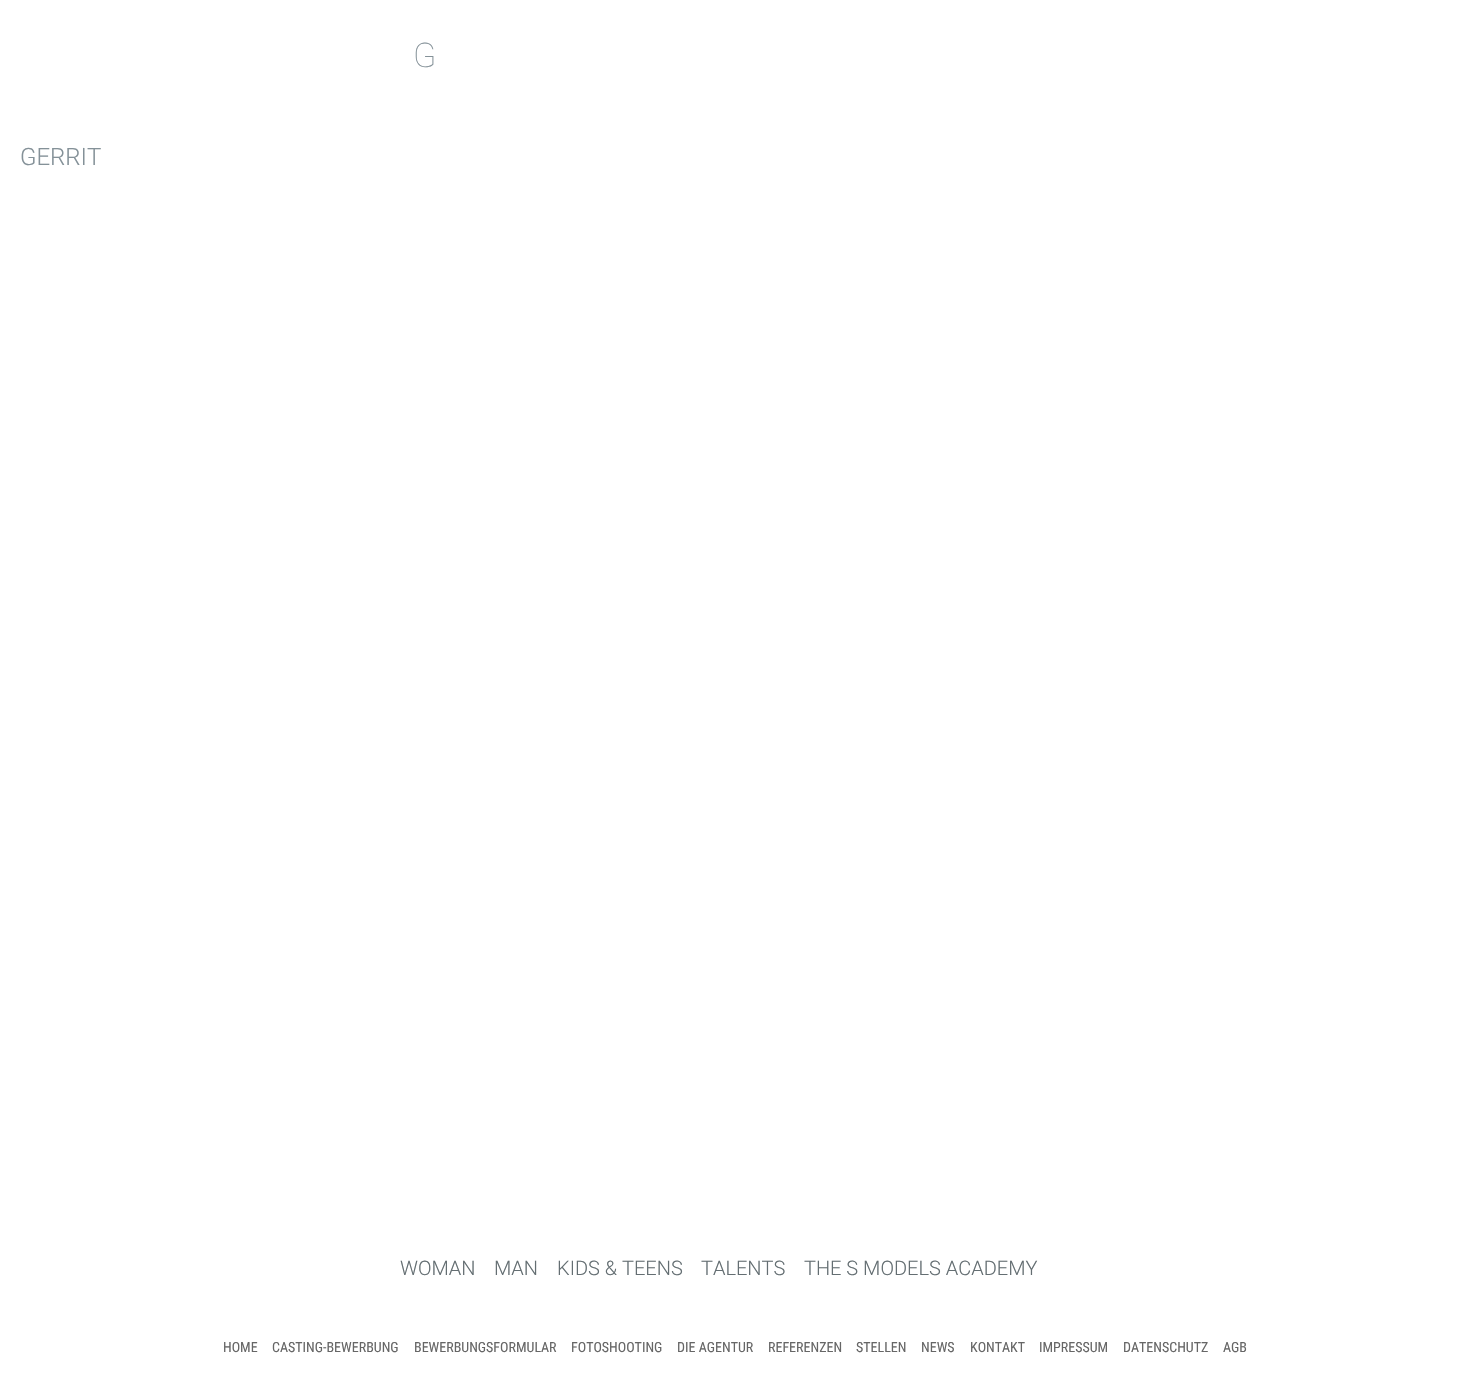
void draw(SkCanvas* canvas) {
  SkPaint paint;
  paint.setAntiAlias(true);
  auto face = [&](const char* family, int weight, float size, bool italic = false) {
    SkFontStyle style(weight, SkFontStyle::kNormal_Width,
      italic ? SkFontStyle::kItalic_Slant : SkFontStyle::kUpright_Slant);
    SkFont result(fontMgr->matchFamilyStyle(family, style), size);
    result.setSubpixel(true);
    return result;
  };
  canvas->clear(0xffffffff);
  auto f0 = face("Roboto", 100, 34);
  paint.setColor(0xff849198);
  canvas->drawString("G", 413, 67, f0, paint);
  auto f1 = face("Roboto", 300, 24);
  canvas->drawString("GERRIT", 20, 165, f1, paint);
  auto f2 = face("Roboto", 300, 20);
  paint.setColor(0xff646e72);
  {
    const struct { const char* s; float x, y; } items[] = {
      {"WOMAN", 400, 1275},
      {"MAN", 494, 1275},
      {"KIDS & TEENS", 557, 1275},
      {"TALENTS", 701, 1275},
      {"THE S MODELS ACADEMY", 804, 1275},
    };
    for (auto [s, x, y] : items) {
      canvas->drawString(s, x, y, f2, paint);
    }
  }
  auto f3 = face("Roboto Condensed", 400, 14);
  paint.setColor(0xff666666);
  {
    const struct { const char* s; float x, y; } items[] = {
      {"HOME", 223, 1352},
      {"CASTING-BEWERBUNG", 272, 1352},
      {"BEWERBUNGSFORMULAR", 414, 1352},
      {"FOTOSHOOTING", 571, 1352},
      {"DIE AGENTUR", 677, 1352},
      {"REFERENZEN", 768, 1352},
      {"STELLEN", 856, 1352},
      {"NEWS", 921, 1352},
      {"KONTAKT", 970, 1352},
      {"IMPRESSUM", 1039, 1352},
      {"DATENSCHUTZ", 1123, 1352},
      {"AGB", 1223, 1352},
    };
    for (auto [s, x, y] : items) {
      canvas->drawString(s, x, y, f3, paint);
    }
  }
}
